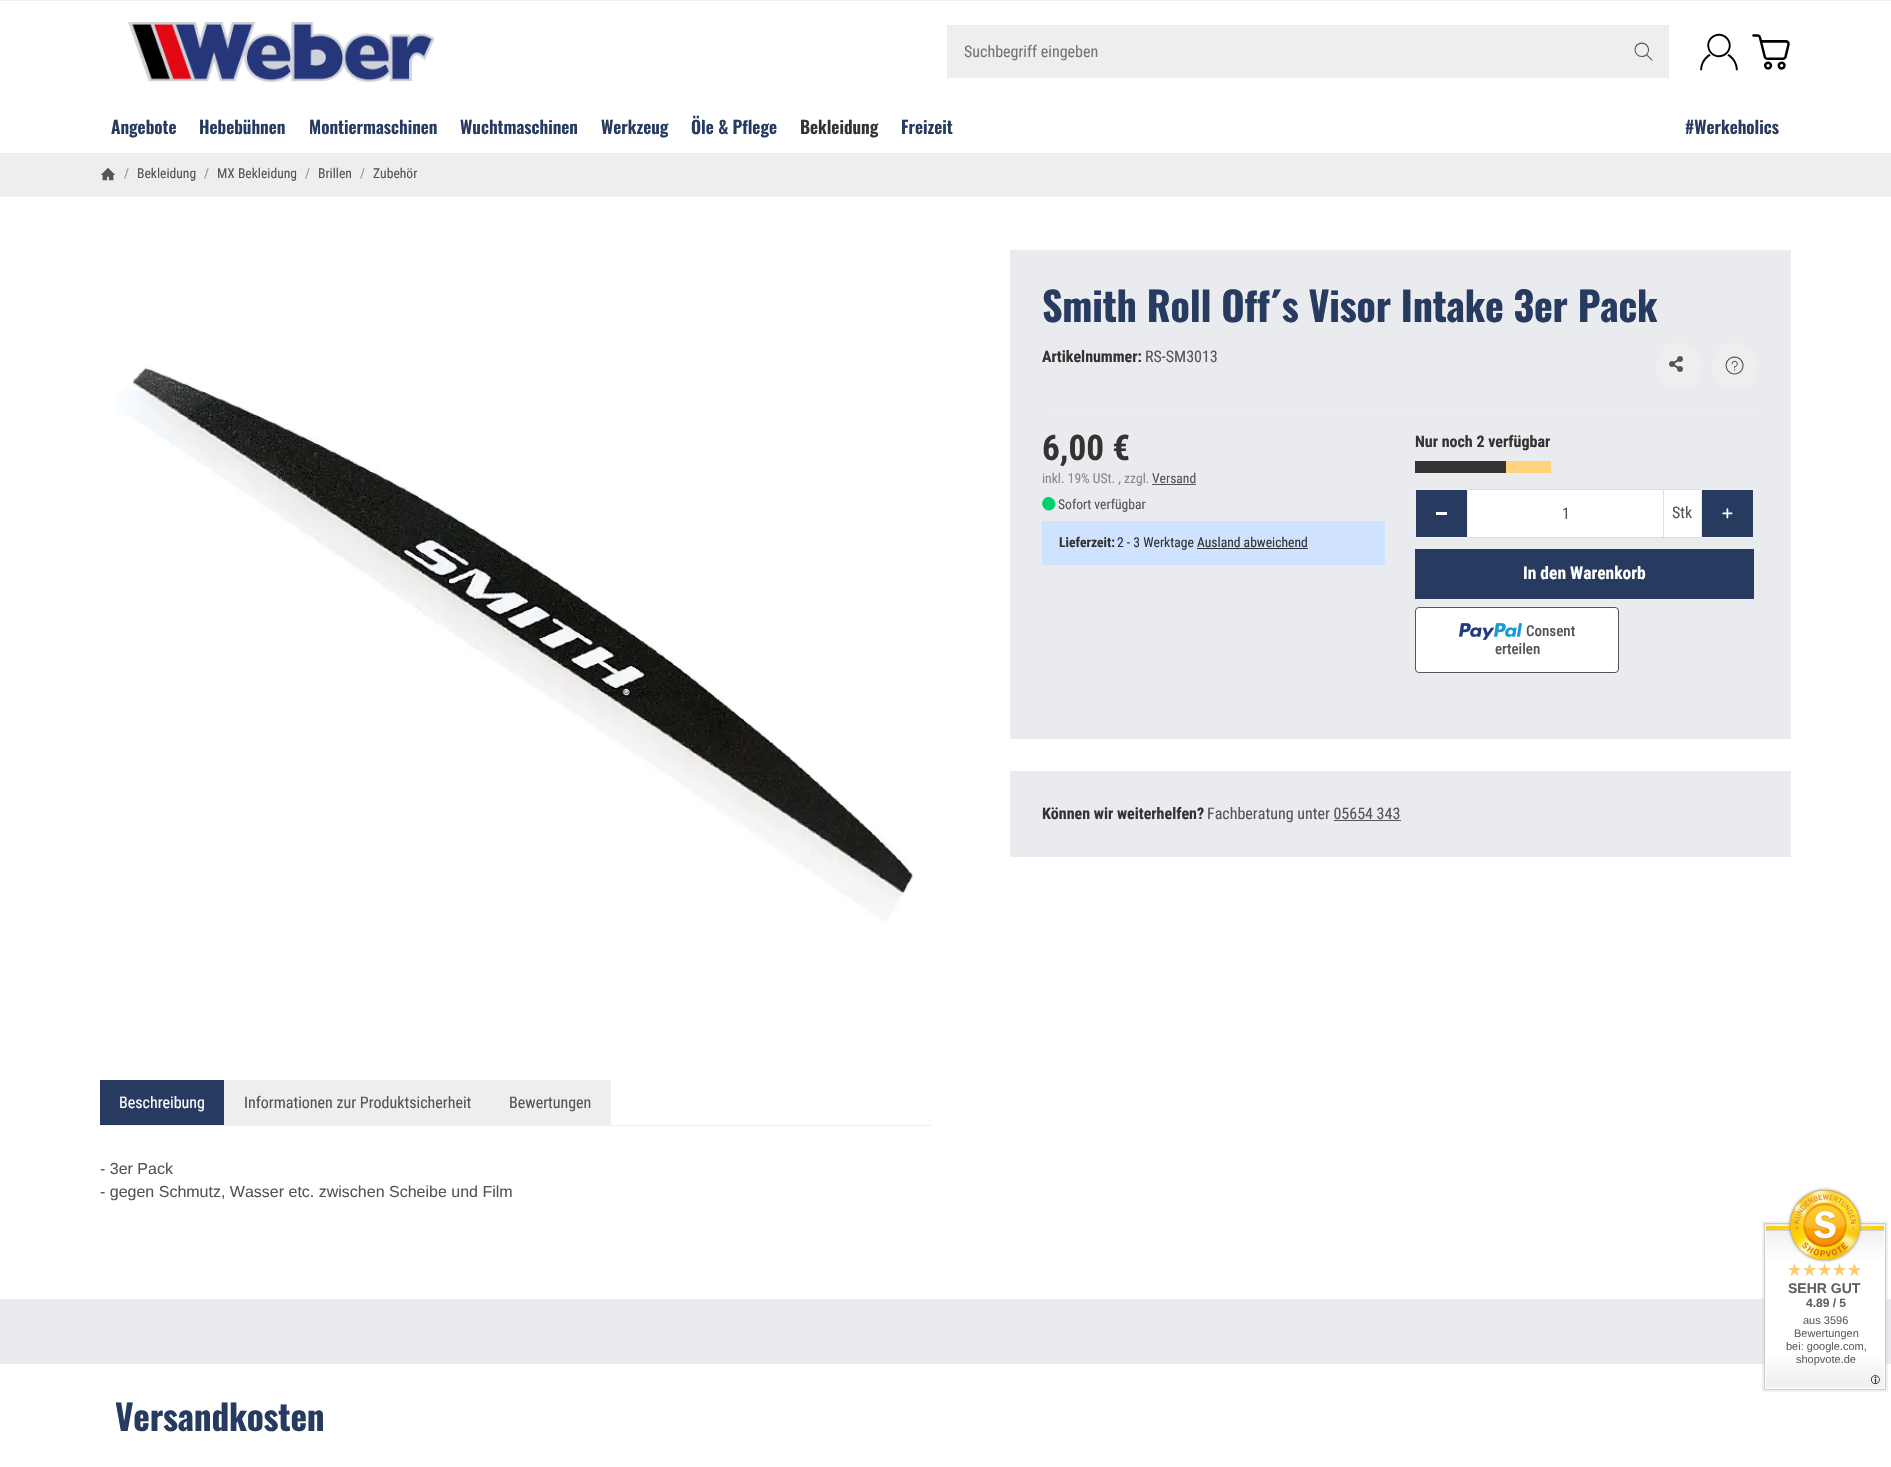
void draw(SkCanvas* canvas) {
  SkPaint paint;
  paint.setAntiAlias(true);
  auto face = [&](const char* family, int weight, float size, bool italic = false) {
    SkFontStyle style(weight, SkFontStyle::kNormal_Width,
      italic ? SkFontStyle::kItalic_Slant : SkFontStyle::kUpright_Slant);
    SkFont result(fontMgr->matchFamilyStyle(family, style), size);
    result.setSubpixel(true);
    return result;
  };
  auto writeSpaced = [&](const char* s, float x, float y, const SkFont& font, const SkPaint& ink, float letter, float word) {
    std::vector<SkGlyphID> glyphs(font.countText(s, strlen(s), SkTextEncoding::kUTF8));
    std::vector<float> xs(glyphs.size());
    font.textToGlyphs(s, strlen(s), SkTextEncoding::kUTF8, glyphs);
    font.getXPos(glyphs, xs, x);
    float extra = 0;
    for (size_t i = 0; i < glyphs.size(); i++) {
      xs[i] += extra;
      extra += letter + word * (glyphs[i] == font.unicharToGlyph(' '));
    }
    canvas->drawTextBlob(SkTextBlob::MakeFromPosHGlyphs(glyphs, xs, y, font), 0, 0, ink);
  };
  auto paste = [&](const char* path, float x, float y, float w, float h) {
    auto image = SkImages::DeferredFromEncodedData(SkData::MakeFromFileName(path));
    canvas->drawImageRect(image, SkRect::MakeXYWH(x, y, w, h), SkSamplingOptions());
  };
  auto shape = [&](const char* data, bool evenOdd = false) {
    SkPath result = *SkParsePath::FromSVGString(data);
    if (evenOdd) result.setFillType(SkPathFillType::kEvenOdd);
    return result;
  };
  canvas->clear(0xffffffff);
  paint.setColor(0xffeeeeee);
  canvas->drawRect(SkRect::MakeXYWH(0, 0, 1891, 1), paint);
  paste("img/1.png", 128, 22, 307, 60);
  canvas->drawRect(SkRect::MakeXYWH(947, 25, 722, 53), paint);
  paste("img/2.png", 1634, 42, 19, 19);
  paste("img/3.png", 1700, 33, 38, 38);
  paste("img/4.png", 1752, 34, 38, 36);
  canvas->drawRect(SkRect::MakeXYWH(0, 153, 1891, 44), paint);
  paste("img/5.png", 101, 167, 14, 14);
  paint.setColor(0xffeaebee);
  canvas->drawRect(SkRect::MakeXYWH(1010, 250, 781, 489), paint);
  paint.setColor(0xffeeeeee);
  canvas->drawCircle(1679, 366, 24, paint);
  paste("img/6.png", 1669, 356, 14, 16);
  canvas->drawCircle(1735, 366, 24, paint);
  paste("img/7.png", 1725, 356, 19, 19);
  canvas->drawRect(SkRect::MakeXYWH(1042, 410, 717, 1), paint);
  paint.setColor(0xff555555);
  canvas->drawRect(SkRect::MakeXYWH(1152, 484, 44, 1), paint);
  paint.setColor(0xff04d06c);
  canvas->drawPath(shape("M1044 499C1050.5 493 1059.5 502.5 1053.5 508.5C1047.5 514.5 1038 505.5 1044 499Z"), paint);
  {
    const struct { float x, y, w, h; SkColor color; } items[] = {
      {1042, 521, 343, 44, 0xffcfe2ff},
      {1197, 548, 111, 1, 0xff333333},
      {1506, 461, 45, 12, 0xffffd47d},
      {1415, 461, 91, 12, 0xff333333},
    };
    for (auto [x, y, w, h, color] : items) {
      paint.setColor(color);
      canvas->drawRect(SkRect::MakeXYWH(x, y, w, h), paint);
    }
  }
  paint.setColor(0xff273a60);
  canvas->drawRect(SkRect::MakeXYWH(1415.5f, 489.5f, 52, 48), paint);
  paint.setStroke(true);
  paint.setStrokeWidth(1);
  paint.setColor(0xffeeeeee);
  canvas->drawRect(SkRect::MakeXYWH(1415.5f, 489.5f, 52, 48), paint);
  paint.setStroke(false);
  {
    const struct { float x, y, w, h; SkColor color; } items[] = {
      {1436, 512, 11, 3, 0xffffffff},
      {1468, 490, 195, 47, 0xffffffff},
      {1468, 489, 195, 1, 0xffdddddd},
      {1468, 537, 195, 1, 0xffdddddd},
    };
    for (auto [x, y, w, h, color] : items) {
      paint.setColor(color);
      canvas->drawRect(SkRect::MakeXYWH(x, y, w, h), paint);
    }
  }
  paint.setColor(0xffffffff);
  canvas->drawRect(SkRect::MakeXYWH(1663.5f, 489.5f, 38, 48), paint);
  paint.setStroke(true);
  paint.setColor(0xffdddddd);
  canvas->drawRect(SkRect::MakeXYWH(1663.5f, 489.5f, 38, 48), paint);
  paint.setStroke(false);
  paint.setColor(0xff273a60);
  canvas->drawRect(SkRect::MakeXYWH(1701.5f, 489.5f, 52, 48), paint);
  paint.setStroke(true);
  paint.setColor(0xffeeeeee);
  canvas->drawRect(SkRect::MakeXYWH(1701.5f, 489.5f, 52, 48), paint);
  paste("img/8.png", 1722, 508, 11, 11);
  paint.setStroke(false);
  paint.setColor(0xff273a60);
  canvas->drawRect(SkRect::MakeXYWH(1415, 549, 339, 50), paint);
  paint.setColor(0xffffffff);
  canvas->drawRoundRect(SkRect::MakeXYWH(1415.5f, 607.5f, 203, 65), 3.5f, 3.5f, paint);
  paint.setStroke(true);
  paint.setColor(0xff555555);
  canvas->drawRoundRect(SkRect::MakeXYWH(1415.5f, 607.5f, 203, 65), 3.5f, 3.5f, paint);
  paste("img/9.png", 1459, 623, 63, 17);
  paint.setStroke(false);
  paint.setColor(0xffeaebee);
  canvas->drawRect(SkRect::MakeXYWH(1010, 771, 781, 86), paint);
  paint.setColor(0xff555555);
  canvas->drawRect(SkRect::MakeXYWH(1334, 820, 67, 1), paint);
  paste("img/10.png", 116, 366, 799, 556);
  {
    const struct { float x, y, w, h; SkColor color; } items[] = {
      {100, 1125, 831, 1, 0xffeeeeee},
      {100, 1080, 124, 45, 0xff273a60},
      {224, 1080, 387, 45, 0xffeeeeee},
      {0, 1299, 1891, 65, 0xffeaebee},
    };
    for (auto [x, y, w, h, color] : items) {
      paint.setColor(color);
      canvas->drawRect(SkRect::MakeXYWH(x, y, w, h), paint);
    }
  }
  paste("img/11.png", 1762, 1187, 126, 205);
  paste("img/12.png", 1788, 1263, 72, 13);
  auto f0 = face("Roboto Condensed", 400, 16);
  paint.setColor(0xff757575);
  canvas->drawString("Suchbegriff eingeben", 964, 57, f0, paint);
  auto f1 = face("Oswald", 600, 17.5f);
  paint.setColor(0xff273a60);
  {
    const struct { const char* s; float x, y; } items[] = {
      {"Angebote", 111, 134},
      {"Hebebühnen", 199, 134},
      {"Montiermaschinen", 309, 134},
      {"Wuchtmaschinen", 460, 134},
      {"Werkzeug", 601, 134},
      {"Öle & Pflege", 691, 134},
    };
    for (auto [s, x, y] : items) {
      canvas->drawString(s, x, y, f1, paint);
    }
  }
  paint.setColor(0xff333333);
  canvas->drawString("Bekleidung", 800, 134, f1, paint);
  paint.setColor(0xff273a60);
  canvas->drawString("Freizeit", 901, 134, f1, paint);
  canvas->drawString("#Werkeholics", 1685, 134, f1, paint);
  auto f2 = face("Roboto Condensed", 400, 13.6f);
  paint.setColor(0xff929292);
  canvas->drawString("/", 124, 178, f2, paint);
  paint.setColor(0xff555555);
  canvas->drawString("Bekleidung", 137, 178, f2, paint);
  paint.setColor(0xff929292);
  canvas->drawString("/", 204, 178, f2, paint);
  paint.setColor(0xff555555);
  canvas->drawString("MX Bekleidung", 217, 178, f2, paint);
  paint.setColor(0xff929292);
  canvas->drawString("/", 305, 178, f2, paint);
  paint.setColor(0xff555555);
  canvas->drawString("Brillen", 318, 178, f2, paint);
  paint.setColor(0xff929292);
  canvas->drawString("/", 360, 178, f2, paint);
  paint.setColor(0xff555555);
  canvas->drawString("Zubehör", 373, 178, f2, paint);
  auto f3 = face("Oswald", 700, 40);
  paint.setColor(0xff273a60);
  writeSpaced("Smith Roll Off´s Visor Intake 3er Pack", 1042, 322, f3, paint, -0.2f, 0);
  auto f4 = face("Roboto Condensed", 700, 16);
  paint.setColor(0xff333333);
  canvas->drawString("Artikelnummer:", 1042, 362, f4, paint);
  paint.setColor(0xff555555);
  canvas->drawString("RS-SM3013", 1145, 362, f0, paint);
  auto f5 = face("Roboto Condensed", 700, 35.25f);
  paint.setColor(0xff333333);
  canvas->drawString("6,00 €", 1042, 460, f5, paint);
  paint.setColor(0xff888888);
  canvas->drawString("inkl. 19% USt. , zzgl.", 1042, 483, f2, paint);
  paint.setColor(0xff555555);
  canvas->drawString("Versand", 1152, 483, f2, paint);
  canvas->drawString("Sofort verfügbar", 1058, 509, f2, paint);
  auto f6 = face("Roboto Condensed", 700, 13.6f);
  paint.setColor(0xff333333);
  canvas->drawString("Lieferzeit:", 1059, 547, f6, paint);
  canvas->drawString("2 - 3 Werktage Ausland abweichend", 1117, 547, f2, paint);
  canvas->drawString("Nur noch 2 verfügbar", 1415, 447, f4, paint);
  paint.setColor(0xff555555);
  canvas->drawString("1", 1562, 519, f0, paint);
  canvas->drawString("Stk", 1672, 518, f0, paint);
  auto f7 = face("Roboto Condensed", 700, 17.5f);
  paint.setColor(0xffffffff);
  canvas->drawString("In den Warenkorb", 1523, 579, f7, paint);
  auto f8 = face("Roboto Condensed", 500, 15);
  paint.setColor(0xff555555);
  canvas->drawString("Consent", 1526, 636, f8, paint);
  canvas->drawString("erteilen", 1495, 654, f8, paint);
  paint.setColor(0xff333333);
  canvas->drawString("Können wir weiterhelfen?", 1042, 819, f4, paint);
  paint.setColor(0xff555555);
  canvas->drawString("Fachberatung unter 05654 343", 1207, 819, f0, paint);
  paint.setColor(0xffffffff);
  canvas->drawString("Beschreibung", 119, 1108, f0, paint);
  paint.setColor(0xff555555);
  canvas->drawString("Informationen zur Produktsicherheit", 244, 1108, f0, paint);
  canvas->drawString("Bewertungen", 509, 1108, f0, paint);
  auto f9 = face("Liberation Sans", 400, 16);
  canvas->drawString("- 3er Pack", 100, 1174, f9, paint);
  canvas->drawString("- gegen Schmutz, Wasser etc. zwischen Scheibe und Film", 100, 1197, f9, paint);
  auto f10 = face("Liberation Sans", 700, 14);
  paint.setColor(0xff606060);
  canvas->drawString("SEHR GUT", 1788, 1293, f10, paint);
  auto f11 = face("Liberation Sans", 700, 12);
  canvas->drawString("4.89 / 5", 1806, 1307, f11, paint);
  auto f12 = face("Liberation Sans", 400, 11);
  {
    const struct { const char* s; float x, y; } items[] = {
      {"aus 3596", 1803, 1324},
      {"Bewertungen", 1794, 1337},
      {"bei: google.com,", 1786, 1350},
      {"shopvote.de", 1796, 1363},
    };
    for (auto [s, x, y] : items) {
      canvas->drawString(s, x, y, f12, paint);
    }
  }
  auto f13 = face("Oswald", 700, 35.25f);
  paint.setColor(0xff273a60);
  writeSpaced("Versandkosten", 115, 1431, f13, paint, -0.2f, 0);
}
